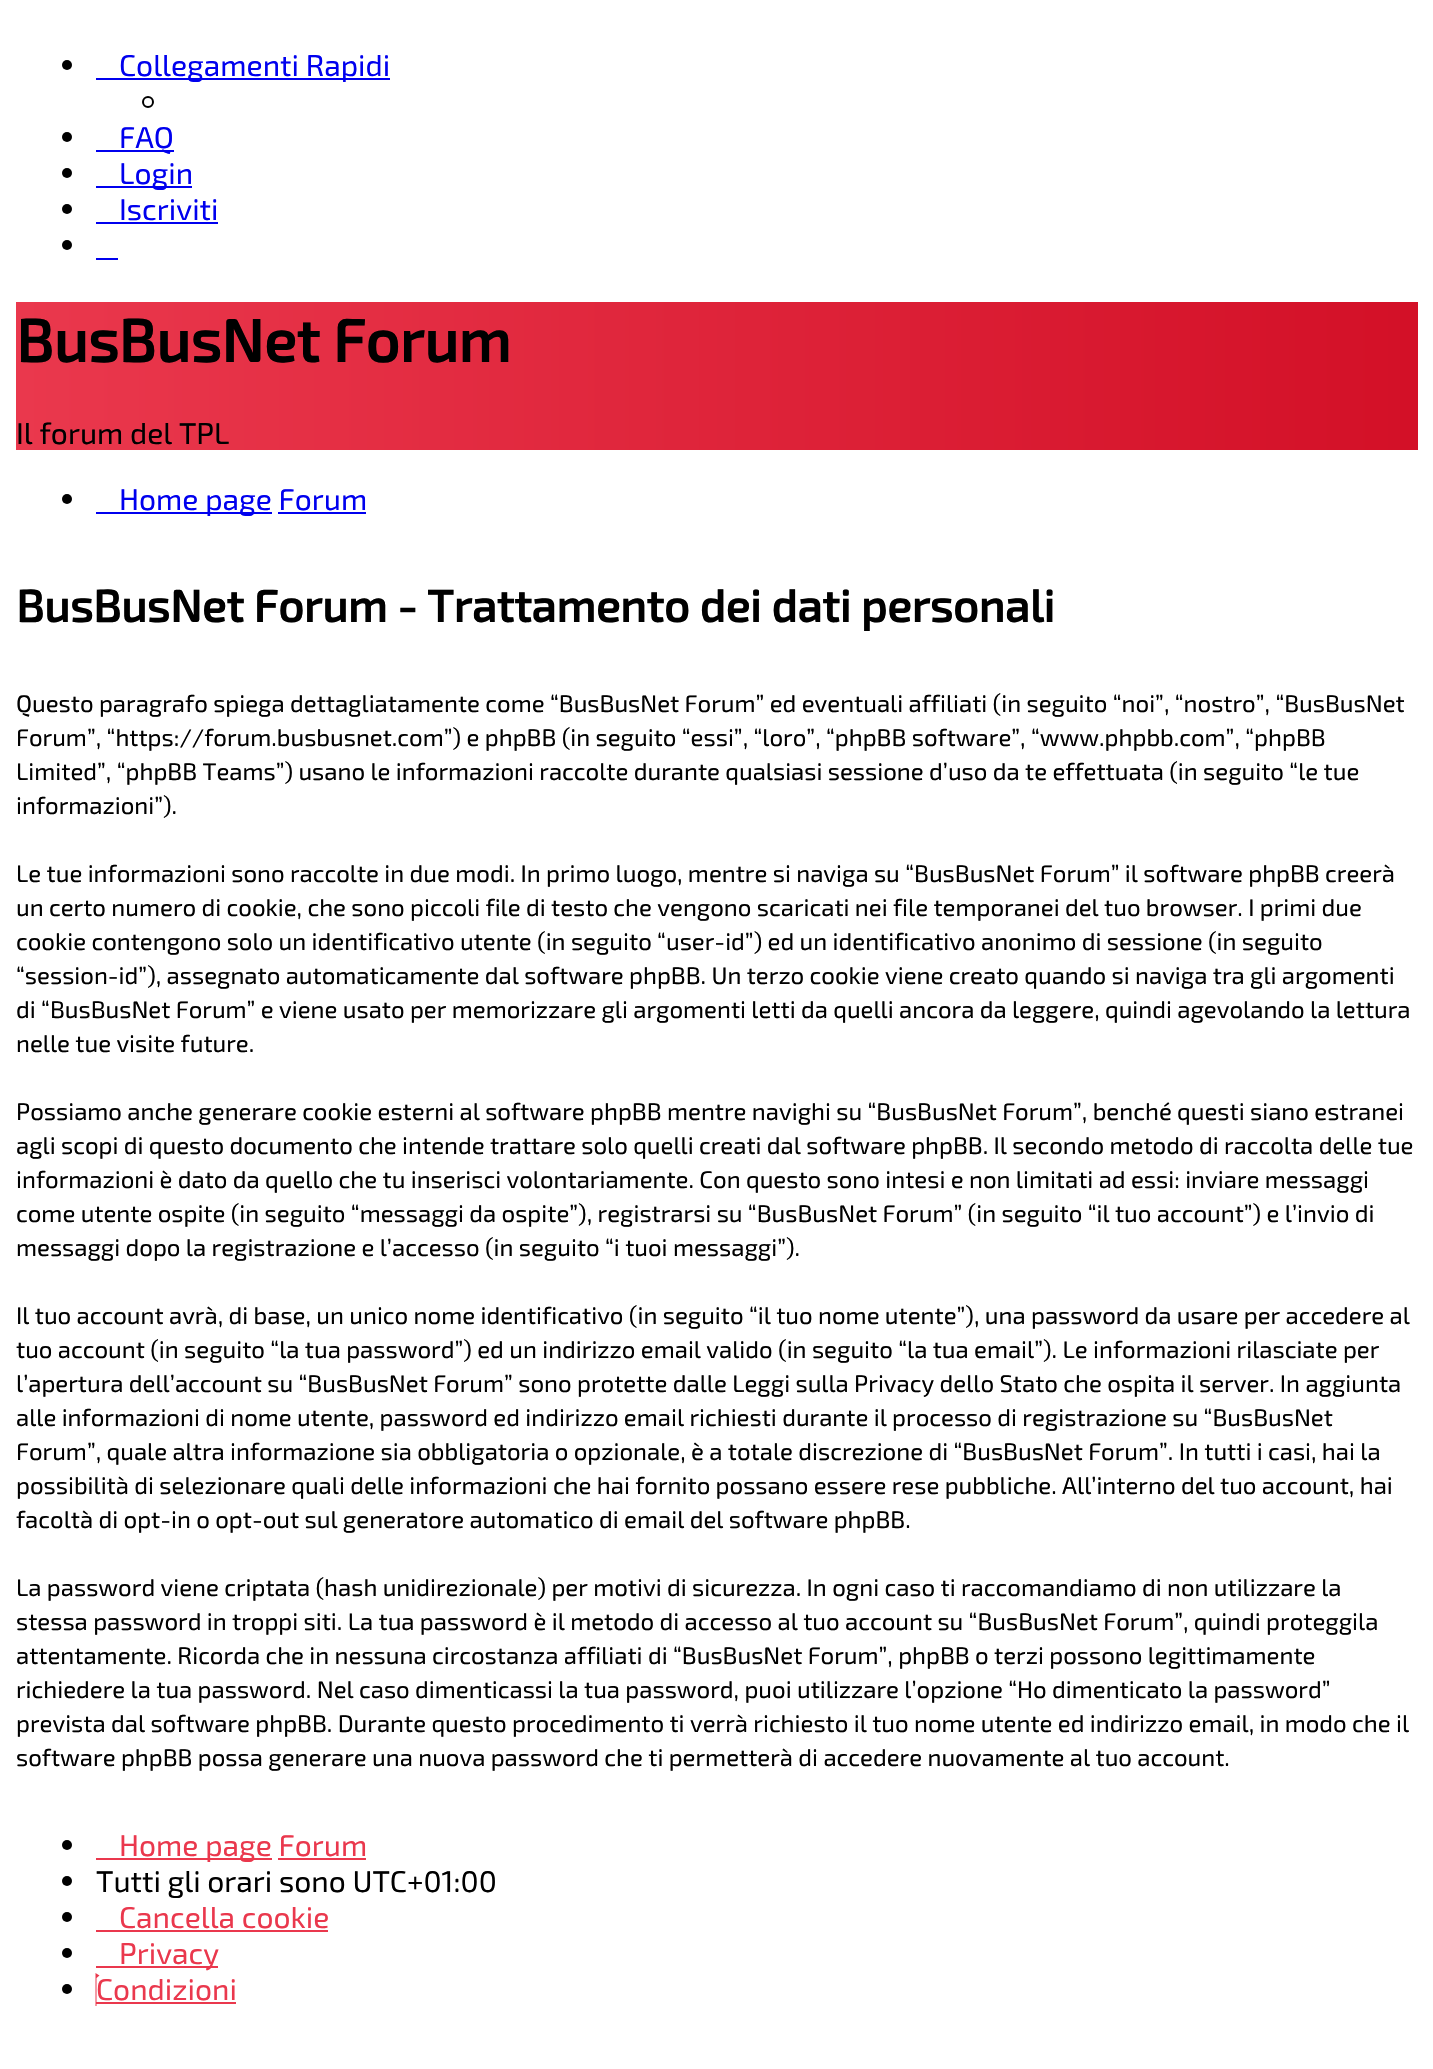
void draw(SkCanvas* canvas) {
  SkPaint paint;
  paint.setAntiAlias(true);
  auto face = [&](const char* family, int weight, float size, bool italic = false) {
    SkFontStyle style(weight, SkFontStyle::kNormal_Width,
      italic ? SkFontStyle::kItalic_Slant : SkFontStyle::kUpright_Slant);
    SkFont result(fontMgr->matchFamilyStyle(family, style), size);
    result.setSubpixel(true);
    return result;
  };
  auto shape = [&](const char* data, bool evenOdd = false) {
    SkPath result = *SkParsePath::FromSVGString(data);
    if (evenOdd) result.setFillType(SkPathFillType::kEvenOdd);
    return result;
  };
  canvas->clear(0xffffffff);
  paint.setColor(0xff000000);
  canvas->drawCircle(67, 65, 5, paint);
  paint.setColor(0xff0000ee);
  canvas->drawRect(SkRect::MakeXYWH(96, 78, 294, 2), paint);
  paint.setStroke(true);
  paint.setStrokeWidth(2);
  paint.setColor(0xff000000);
  canvas->drawCircle(148, 102, 5, paint);
  paint.setStroke(false);
  canvas->drawCircle(67, 137, 5, paint);
  paint.setColor(0xff0000ee);
  canvas->drawRect(SkRect::MakeXYWH(96, 150, 78, 2), paint);
  paint.setColor(0xff000000);
  canvas->drawCircle(67, 173, 5, paint);
  paint.setColor(0xff0000ee);
  canvas->drawRect(SkRect::MakeXYWH(96, 186, 96, 2), paint);
  paint.setColor(0xff000000);
  canvas->drawCircle(67, 209, 5, paint);
  paint.setColor(0xff0000ee);
  canvas->drawRect(SkRect::MakeXYWH(96, 222, 122, 2), paint);
  paint.setColor(0xff000000);
  canvas->drawCircle(67, 245, 5, paint);
  paint.setColor(0xff0000ee);
  canvas->drawRect(SkRect::MakeXYWH(96, 258, 22, 2), paint);
  {
    const SkColor colors[] = {0xffea384d, 0xffd31027};
    const float stops[] = {0, 1};
    const SkPoint ends[] = {{16, 376}, {1418, 376}};
    paint.setShader(SkGradientShader::MakeLinear(ends, colors, stops, 2, SkTileMode::kClamp));
    paint.setAlpha(255);
  }
  canvas->drawRect(SkRect::MakeXYWH(16, 302, 1402, 148), paint);
  paint.setShader(nullptr);
  paint.setColor(0xff000000);
  canvas->drawCircle(67, 499, 5, paint);
  paint.setColor(0xff0000ee);
  canvas->drawRect(SkRect::MakeXYWH(96, 512, 176, 2), paint);
  canvas->drawRect(SkRect::MakeXYWH(278, 512, 88, 2), paint);
  paint.setColor(0xff000000);
  canvas->drawCircle(67, 1845, 5, paint);
  paint.setColor(0xffea384d);
  canvas->drawRect(SkRect::MakeXYWH(96, 1858, 176, 2), paint);
  canvas->drawRect(SkRect::MakeXYWH(278, 1858, 88, 2), paint);
  paint.setColor(0xff000000);
  canvas->drawCircle(67, 1881, 5, paint);
  canvas->drawCircle(67, 1917, 5, paint);
  paint.setColor(0xffea384d);
  canvas->drawRect(SkRect::MakeXYWH(96, 1930, 232, 2), paint);
  paint.setColor(0xff000000);
  canvas->drawCircle(67, 1953, 5, paint);
  paint.setColor(0xffea384d);
  canvas->drawRect(SkRect::MakeXYWH(96, 1966, 122, 2), paint);
  paint.setColor(0xff000000);
  canvas->drawCircle(67, 1989, 5, paint);
  paint.setColor(0xffea384d);
  canvas->drawPath(shape("M99.5 1975.5L96.5 1978V2006H95.5V1973Z"), paint);
  canvas->drawRect(SkRect::MakeXYWH(96, 2002, 140, 2), paint);
  auto f0 = face("Exo 2", 400, 30);
  paint.setColor(0xff0000ee);
  {
    const struct { const char* s; float x, y; } items[] = {
      {"Collegamenti Rapidi", 119, 76},
      {"FAQ", 119, 148},
      {"Login", 119, 184},
      {"Iscriviti", 119, 220},
    };
    for (auto [s, x, y] : items) {
      canvas->drawString(s, x, y, f0, paint);
    }
  }
  auto f1 = face("Exo 2", 700, 60);
  paint.setColor(0xff000000);
  canvas->drawString("BusBusNet Forum", 16, 362, f1, paint);
  canvas->drawString("Il forum del TPL", 16, 444, f0, paint);
  paint.setColor(0xff0000ee);
  canvas->drawString("Home page Forum", 119, 510, f0, paint);
  auto f2 = face("Exo 2", 700, 45);
  paint.setColor(0xff000000);
  canvas->drawString("BusBusNet Forum - Trattamento dei dati personali", 16, 622, f2, paint);
  auto f3 = face("Exo 2", 400, 24);
  {
    const struct { const char* s; float x, y; } items[] = {
      {"Questo paragrafo spiega dettagliatamente come “BusBusNet Forum” ed eventuali affiliati (in seguito “noi”, “nostro”, “BusBusNet", 16, 712},
      {"Forum”, “https://forum.busbusnet.com”) e phpBB (in seguito “essi”, “loro”, “phpBB software”, “www.phpbb.com”, “phpBB", 16, 746},
      {"Limited”, “phpBB Teams”) usano le informazioni raccolte durante qualsiasi sessione d’uso da te effettuata (in seguito “le tue", 16, 780},
      {"informazioni”).", 16, 814},
      {"Le tue informazioni sono raccolte in due modi. In primo luogo, mentre si naviga su “BusBusNet Forum” il software phpBB creerà", 16, 882},
      {"un certo numero di cookie, che sono piccoli file di testo che vengono scaricati nei file temporanei del tuo browser. I primi due", 16, 916},
      {"cookie contengono solo un identificativo utente (in seguito “user-id”) ed un identificativo anonimo di sessione (in seguito", 16, 950},
      {"“session-id”), assegnato automaticamente dal software phpBB. Un terzo cookie viene creato quando si naviga tra gli argomenti", 16, 984},
      {"di “BusBusNet Forum” e viene usato per memorizzare gli argomenti letti da quelli ancora da leggere, quindi agevolando la lettura", 16, 1018},
      {"nelle tue visite future.", 16, 1052},
      {"Possiamo anche generare cookie esterni al software phpBB mentre navighi su “BusBusNet Forum”, benché questi siano estranei", 16, 1120},
      {"agli scopi di questo documento che intende trattare solo quelli creati dal software phpBB. Il secondo metodo di raccolta delle tue", 16, 1154},
      {"informazioni è dato da quello che tu inserisci volontariamente. Con questo sono intesi e non limitati ad essi: inviare messaggi", 16, 1188},
      {"come utente ospite (in seguito “messaggi da ospite”), registrarsi su “BusBusNet Forum” (in seguito “il tuo account”) e l’invio di", 16, 1222},
      {"messaggi dopo la registrazione e l’accesso (in seguito “i tuoi messaggi”).", 16, 1256},
      {"Il tuo account avrà, di base, un unico nome identificativo (in seguito “il tuo nome utente”), una password da usare per accedere al", 16, 1324},
      {"tuo account (in seguito “la tua password”) ed un indirizzo email valido (in seguito “la tua email”). Le informazioni rilasciate per", 16, 1358},
      {"l’apertura dell’account su “BusBusNet Forum” sono protette dalle Leggi sulla Privacy dello Stato che ospita il server. In aggiunta", 16, 1392},
      {"alle informazioni di nome utente, password ed indirizzo email richiesti durante il processo di registrazione su “BusBusNet", 16, 1426},
      {"Forum”, quale altra informazione sia obbligatoria o opzionale, è a totale discrezione di “BusBusNet Forum”. In tutti i casi, hai la", 16, 1460},
      {"possibilità di selezionare quali delle informazioni che hai fornito possano essere rese pubbliche. All’interno del tuo account, hai", 16, 1494},
      {"facoltà di opt-in o opt-out sul generatore automatico di email del software phpBB.", 16, 1528},
      {"La password viene criptata (hash unidirezionale) per motivi di sicurezza. In ogni caso ti raccomandiamo di non utilizzare la", 16, 1596},
      {"stessa password in troppi siti. La tua password è il metodo di accesso al tuo account su “BusBusNet Forum”, quindi proteggila", 16, 1630},
      {"attentamente. Ricorda che in nessuna circostanza affiliati di “BusBusNet Forum”, phpBB o terzi possono legittimamente", 16, 1664},
      {"richiedere la tua password. Nel caso dimenticassi la tua password, puoi utilizzare l’opzione “Ho dimenticato la password”", 16, 1698},
      {"prevista dal software phpBB. Durante questo procedimento ti verrà richiesto il tuo nome utente ed indirizzo email, in modo che il", 16, 1732},
      {"software phpBB possa generare una nuova password che ti permetterà di accedere nuovamente al tuo account.", 16, 1766},
    };
    for (auto [s, x, y] : items) {
      canvas->drawString(s, x, y, f3, paint);
    }
  }
  paint.setColor(0xffea384d);
  canvas->drawString("Home page Forum", 119, 1856, f0, paint);
  paint.setColor(0xff000000);
  canvas->drawString("Tutti gli orari sono UTC+01:00", 96, 1892, f0, paint);
  paint.setColor(0xffea384d);
  {
    const struct { const char* s; float x, y; } items[] = {
      {"Cancella cookie", 119, 1928},
      {"Privacy", 119, 1964},
      {"Condizioni", 96, 2000},
    };
    for (auto [s, x, y] : items) {
      canvas->drawString(s, x, y, f0, paint);
    }
  }
}
